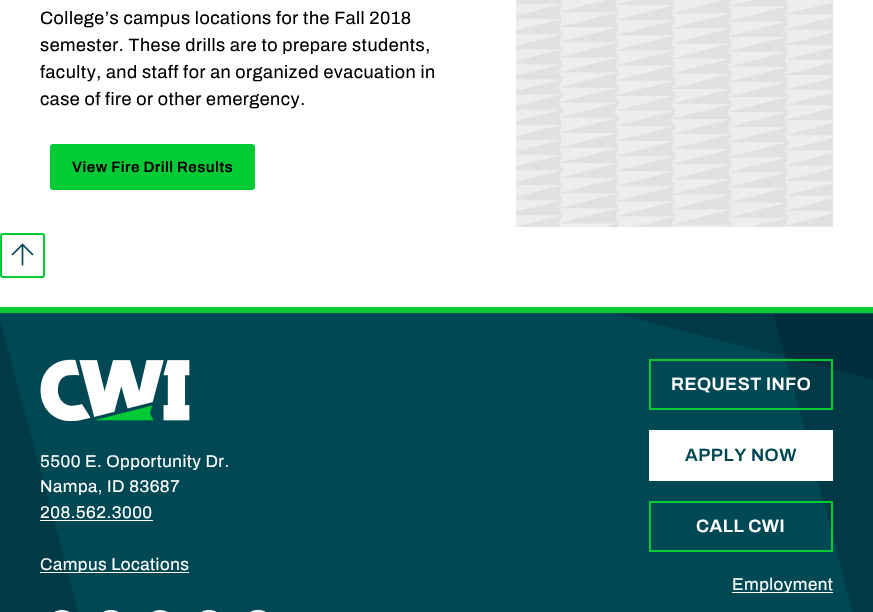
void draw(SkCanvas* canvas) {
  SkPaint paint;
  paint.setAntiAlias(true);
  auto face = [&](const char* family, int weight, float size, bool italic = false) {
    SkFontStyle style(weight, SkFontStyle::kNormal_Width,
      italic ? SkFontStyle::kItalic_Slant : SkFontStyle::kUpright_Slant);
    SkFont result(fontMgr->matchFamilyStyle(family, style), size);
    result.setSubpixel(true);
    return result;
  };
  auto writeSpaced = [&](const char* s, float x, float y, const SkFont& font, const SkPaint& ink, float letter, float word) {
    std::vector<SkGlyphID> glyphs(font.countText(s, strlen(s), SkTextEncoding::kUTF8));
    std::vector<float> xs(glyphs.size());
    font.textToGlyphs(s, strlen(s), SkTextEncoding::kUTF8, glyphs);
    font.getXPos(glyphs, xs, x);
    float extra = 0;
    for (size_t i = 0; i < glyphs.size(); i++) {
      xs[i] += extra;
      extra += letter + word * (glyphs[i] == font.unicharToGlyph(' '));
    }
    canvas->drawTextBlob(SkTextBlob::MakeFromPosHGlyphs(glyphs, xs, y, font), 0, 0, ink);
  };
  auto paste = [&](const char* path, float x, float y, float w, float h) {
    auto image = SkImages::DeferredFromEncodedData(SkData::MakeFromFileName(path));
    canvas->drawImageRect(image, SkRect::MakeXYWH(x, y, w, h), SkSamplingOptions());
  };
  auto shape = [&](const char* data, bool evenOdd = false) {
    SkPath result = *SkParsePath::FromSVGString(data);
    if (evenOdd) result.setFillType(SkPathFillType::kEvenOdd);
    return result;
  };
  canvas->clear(0xffffffff);
  paint.setColor(0xff02cb35);
  canvas->drawRoundRect(SkRect::MakeXYWH(51, 145, 203, 44), 2, 2, paint);
  paint.setStroke(true);
  paint.setStrokeWidth(2);
  canvas->drawRoundRect(SkRect::MakeXYWH(51, 145, 203, 44), 2, 2, paint);
  paste("img/1.png", 516, 0, 317, 227);
  paint.setStroke(false);
  canvas->drawRect(SkRect::MakeXYWH(0, 307, 873, 6), paint);
  paint.setColor(0xff004853);
  canvas->drawRect(SkRect::MakeXYWH(0, 313, 873, 299), paint);
  paint.setStroke(true);
  paint.setColor(0xff02cb35);
  canvas->drawRoundRect(SkRect::MakeXYWH(1, 234, 43, 43), 2, 2, paint);
  paste("img/2.png", 11, 243, 23, 23);
  paint.setStroke(false);
  paint.setColor(0xff003a47);
  canvas->drawPath(shape("M0 320V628L89 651L0 320"), paint);
  canvas->drawPath(shape("M614 313L785 357L773 314L614 313"), paint);
  canvas->drawPath(shape("M785 357L873 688V380L785 357"), paint);
  paint.setColor(0xff002e3c);
  canvas->drawPath(shape("M773 314L785 357L873 380V314H773"), paint);
  paste("img/3.png", 40, 359, 150, 62);
  paint.setColor(0xffffffff);
  canvas->drawRect(SkRect::MakeXYWH(40, 520, 113, 1), paint);
  canvas->drawRect(SkRect::MakeXYWH(40, 572, 149, 1), paint);
  paste("img/4.png", 54, 609, 16, 3);
  paste("img/5.png", 103, 609, 16, 3);
  paste("img/6.png", 152, 609, 16, 3);
  paste("img/5.png", 201, 609, 16, 3);
  paste("img/7.png", 250, 609, 16, 3);
  paint.setStroke(true);
  paint.setColor(0xff02cb35);
  canvas->drawRect(SkRect::MakeXYWH(650, 360, 182, 49), paint);
  paint.setStroke(false);
  paint.setColor(0xffffffff);
  canvas->drawRect(SkRect::MakeXYWH(649, 430, 184, 51), paint);
  paint.setStroke(true);
  paint.setColor(0xff02cb35);
  canvas->drawRect(SkRect::MakeXYWH(650, 502, 182, 49), paint);
  paint.setStroke(false);
  paint.setColor(0xffffffff);
  canvas->drawRect(SkRect::MakeXYWH(732, 592, 101, 1), paint);
  auto f0 = face("Archivo", 400, 18);
  paint.setColor(0xff000000);
  {
    const struct { const char* s; float x, y; } items[] = {
      {"College’s campus locations for the Fall 2018", 40, 24},
      {"semester. These drills are to prepare students,", 40, 51},
      {"faculty, and staff for an organized evacuation in", 40, 78},
      {"case of fire or other emergency.", 40, 105},
    };
    for (auto [s, x, y] : items) {
      writeSpaced(s, x, y, f0, paint, 0.5f, 0);
    }
  }
  auto f1 = face("Archivo", 600, 15);
  writeSpaced("View Fire Drill Results", 72, 172, f1, paint, 0.5f, 0);
  auto f2 = face("Archivo", 400, 17);
  paint.setColor(0xffffffff);
  {
    const struct { const char* s; float x, y; } items[] = {
      {"5500 E. Opportunity Dr.", 40, 467},
      {"Nampa, ID 83687", 40, 492},
      {"208.562.3000", 40, 518},
      {"Campus Locations", 40, 570},
    };
    for (auto [s, x, y] : items) {
      writeSpaced(s, x, y, f2, paint, 0.5f, 0);
    }
  }
  auto f3 = face("Archivo", 600, 18);
  writeSpaced("REQUEST INFO", 671, 390, f3, paint, 0.5f, 0);
  paint.setColor(0xff004853);
  writeSpaced("APPLY NOW", 685, 461, f3, paint, 0.5f, 0);
  paint.setColor(0xffffffff);
  writeSpaced("CALL CWI", 696, 532, f3, paint, 0.5f, 0);
  writeSpaced("Employment", 732, 590, f2, paint, 0.5f, 0);
}
